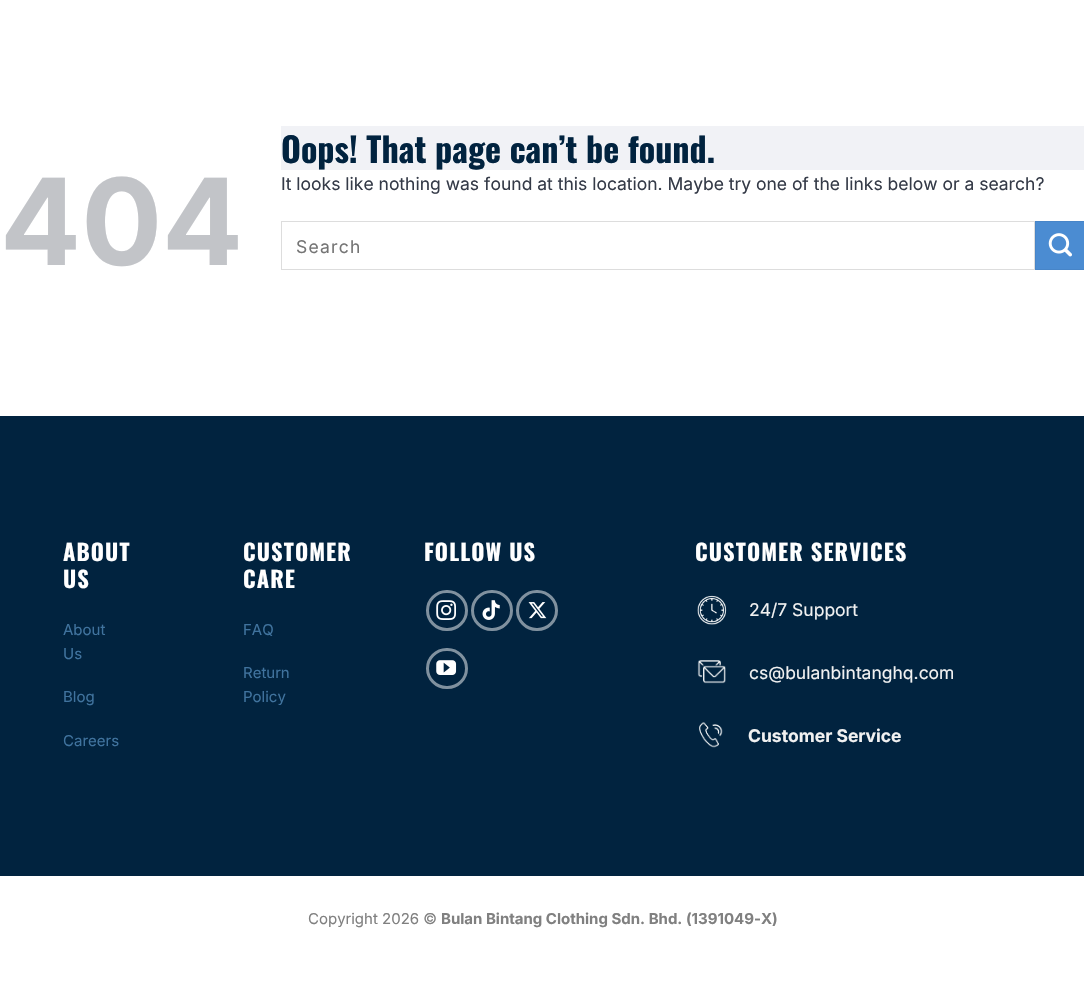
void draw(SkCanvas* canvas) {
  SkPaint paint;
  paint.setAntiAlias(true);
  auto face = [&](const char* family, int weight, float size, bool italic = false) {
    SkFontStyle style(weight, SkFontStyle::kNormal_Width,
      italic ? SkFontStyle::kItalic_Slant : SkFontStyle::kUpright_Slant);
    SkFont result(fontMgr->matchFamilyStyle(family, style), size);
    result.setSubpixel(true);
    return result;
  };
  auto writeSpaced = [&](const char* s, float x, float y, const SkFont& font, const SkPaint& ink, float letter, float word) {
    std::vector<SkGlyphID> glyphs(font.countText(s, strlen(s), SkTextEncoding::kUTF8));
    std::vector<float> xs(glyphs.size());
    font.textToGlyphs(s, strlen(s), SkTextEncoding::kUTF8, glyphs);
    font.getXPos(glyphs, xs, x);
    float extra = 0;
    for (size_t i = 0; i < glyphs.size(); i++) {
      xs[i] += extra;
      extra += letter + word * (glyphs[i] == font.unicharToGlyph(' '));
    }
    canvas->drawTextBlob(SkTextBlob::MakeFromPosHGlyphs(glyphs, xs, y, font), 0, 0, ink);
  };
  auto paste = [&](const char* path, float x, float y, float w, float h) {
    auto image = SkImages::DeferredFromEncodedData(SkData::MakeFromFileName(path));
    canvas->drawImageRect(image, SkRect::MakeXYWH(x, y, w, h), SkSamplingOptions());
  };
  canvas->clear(0xffffffff);
  paint.setColor(0xfff1f2f6);
  canvas->drawRect(SkRect::MakeXYWH(281, 126, 803, 44), paint);
  paint.setStroke(true);
  paint.setStrokeWidth(1);
  paint.setColor(0xffdddddd);
  canvas->drawRect(SkRect::MakeXYWH(281.5f, 221.5f, 753, 48), paint);
  paint.setStroke(false);
  paint.setColor(0xff4b8cd2);
  canvas->drawRect(SkRect::MakeXYWH(1035.5f, 221.5f, 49, 48), paint);
  paint.setStroke(true);
  paint.setColor(0xff4785c8);
  canvas->drawRect(SkRect::MakeXYWH(1035.5f, 221.5f, 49, 48), paint);
  paste("img/1.png", 1048, 233, 24, 24);
  paint.setStroke(false);
  paint.setColor(0xff01233f);
  canvas->drawRect(SkRect::MakeXYWH(0, 416, 1084, 460), paint);
  paint.setStroke(true);
  paint.setStrokeWidth(3);
  paint.setColor(0xff80919f);
  canvas->drawRoundRect(SkRect::MakeXYWH(427.5f, 591.5f, 39, 38), 19, 19, paint);
  paste("img/2.png", 436, 600, 20, 20);
  canvas->drawRoundRect(SkRect::MakeXYWH(472.5f, 591.5f, 39, 38), 19, 19, paint);
  paste("img/3.png", 482, 600, 18, 20);
  canvas->drawRoundRect(SkRect::MakeXYWH(517.5f, 591.5f, 39, 38), 19, 19, paint);
  paste("img/4.png", 528, 602, 19, 17);
  canvas->drawRoundRect(SkRect::MakeXYWH(427.5f, 649.5f, 39, 38), 19, 19, paint);
  paste("img/5.png", 436, 660, 21, 15);
  paste("img/6.png", 697, 595, 30, 30);
  paste("img/7.png", 697, 660, 29, 24);
  paste("img/8.png", 699, 722, 24, 26);
  auto f0 = face("Inter", 700, 120);
  paint.setStroke(false);
  paint.setColor(0xffc2c4c8);
  canvas->drawString("404", 0, 265, f0, paint);
  auto f1 = face("Oswald", 700, 34);
  paint.setColor(0xff01233f);
  canvas->drawString("Oops! That page can’t be found.", 281, 163, f1, paint);
  auto f2 = face("Inter", 400, 17.5f);
  paint.setColor(0xff353b48);
  canvas->drawString("It looks like nothing was found at this location. Maybe try one of the links below or a search?", 281, 190, f2, paint);
  paint.setColor(0xff757575);
  writeSpaced("Search", 296, 253, f2, paint, 1.25f, 0);
  auto f3 = face("Oswald", 700, 22.5f);
  paint.setColor(0xffffffff);
  writeSpaced("ABOUT", 63, 561, f3, paint, 1.1f, 0);
  writeSpaced("US", 63, 588, f3, paint, 1.1f, 0);
  auto f4 = face("Inter", 400, 15);
  paint.setColor(0xff40739e);
  {
    const struct { const char* s; float x, y; } items[] = {
      {"About", 63, 635},
      {"Us", 63, 659},
      {"Blog", 63, 702},
      {"Careers", 63, 746},
    };
    for (auto [s, x, y] : items) {
      canvas->drawString(s, x, y, f4, paint);
    }
  }
  paint.setColor(0xffffffff);
  writeSpaced("CUSTOMER", 243, 561, f3, paint, 1.1f, 0);
  writeSpaced("CARE", 243, 588, f3, paint, 1.1f, 0);
  paint.setColor(0xff40739e);
  {
    const struct { const char* s; float x, y; } items[] = {
      {"FAQ", 243, 635},
      {"Return", 243, 678},
      {"Policy", 243, 702},
    };
    for (auto [s, x, y] : items) {
      canvas->drawString(s, x, y, f4, paint);
    }
  }
  paint.setColor(0xffffffff);
  writeSpaced("FOLLOW US", 424, 561, f3, paint, 1.1f, 0);
  writeSpaced("CUSTOMER SERVICES", 695, 561, f3, paint, 1.1f, 0);
  paint.setColor(0xfff1f1f1);
  canvas->drawString("24/7 Support", 749, 616, f2, paint);
  canvas->drawString("cs@bulanbintanghq.com", 749, 679, f2, paint);
  auto f5 = face("Inter", 700, 17.5f);
  canvas->drawString("Customer Service", 748, 742, f5, paint);
  paint.setColor(0xff808080);
  canvas->drawString("Copyright 2026 ©", 308, 924, f4, paint);
  auto f6 = face("Inter", 700, 15);
  canvas->drawString("Bulan Bintang Clothing Sdn. Bhd. (1391049-X)", 441, 924, f6, paint);
}
